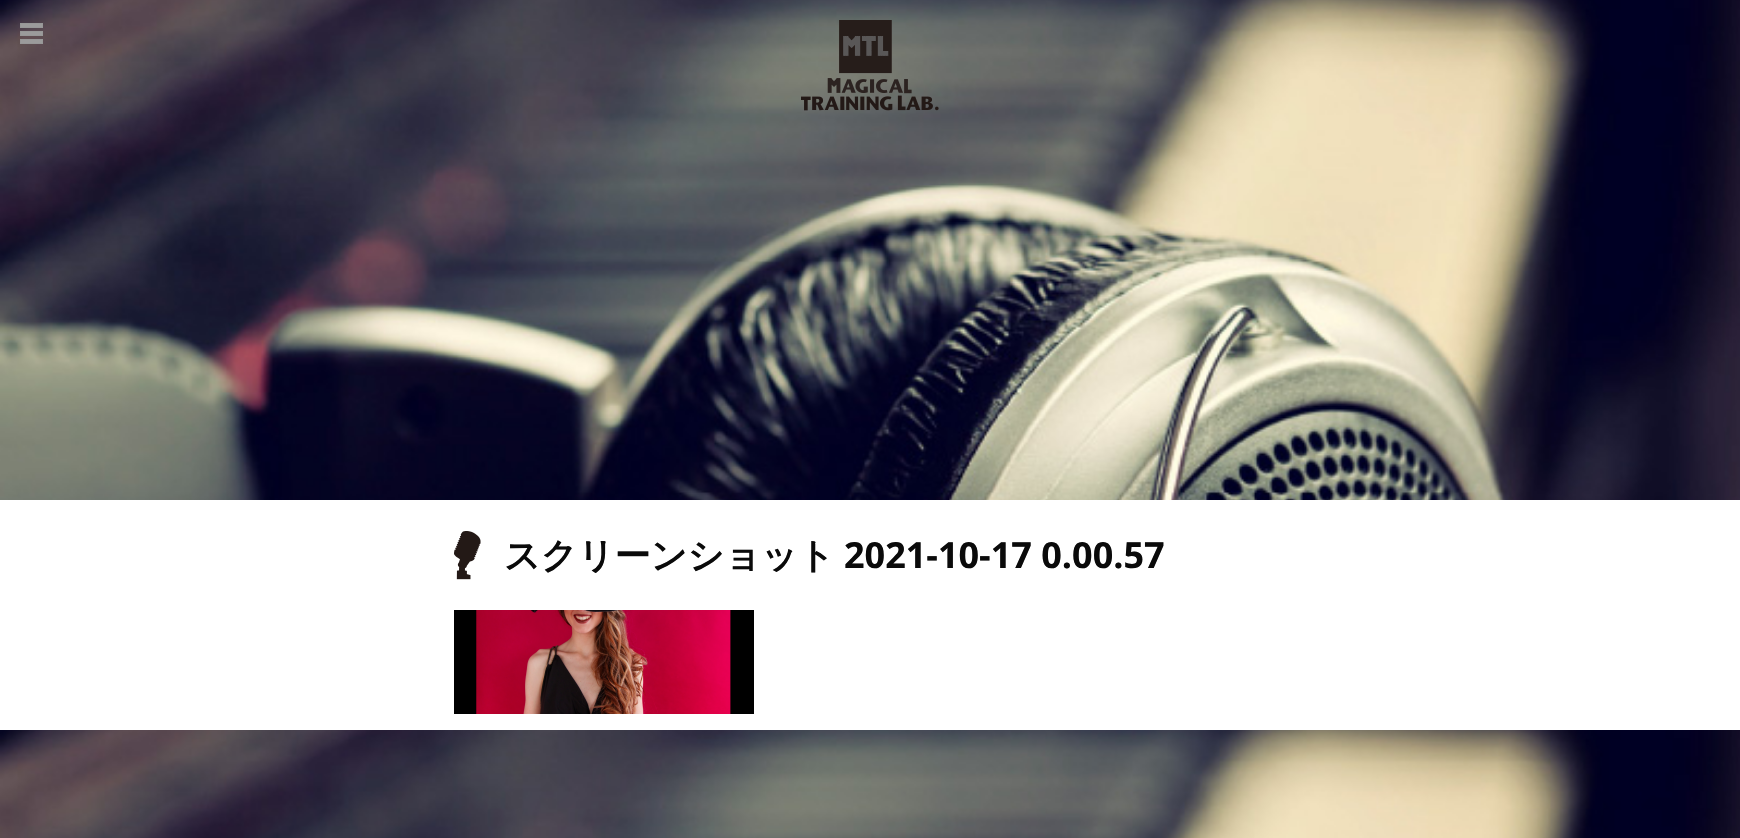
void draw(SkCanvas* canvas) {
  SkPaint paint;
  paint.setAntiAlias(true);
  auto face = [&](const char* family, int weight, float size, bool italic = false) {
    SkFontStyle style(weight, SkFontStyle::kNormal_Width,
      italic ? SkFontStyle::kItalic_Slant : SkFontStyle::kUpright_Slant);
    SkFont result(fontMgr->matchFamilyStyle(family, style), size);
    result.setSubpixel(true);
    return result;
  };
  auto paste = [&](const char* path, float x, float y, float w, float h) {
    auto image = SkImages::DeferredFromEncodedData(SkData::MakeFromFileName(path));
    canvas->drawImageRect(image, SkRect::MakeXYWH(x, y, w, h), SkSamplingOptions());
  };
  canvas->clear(0xffffffff);
  paste("img/3.png", 0, 0, 1740, 500);
  paste("img/1.png", 20, 23, 23, 21);
  paste("img/2.png", 801, 20, 138, 91);
  paste("img/4.png", 454, 531, 27, 49);
  paste("img/5.png", 454, 610, 300, 104);
  paste("img/6.png", 0, 730, 1740, 108);
  auto f0 = face("WenQuanYi Zen Hei", 700, 36);
  paint.setColor(0xff0a0a0a);
  canvas->drawString("スクリーンショット", 504, 568, f0, paint);
  auto f1 = face("Open Sans", 700, 36);
  canvas->drawString("2021-10-17 0.00.57", 844, 568, f1, paint);
}
